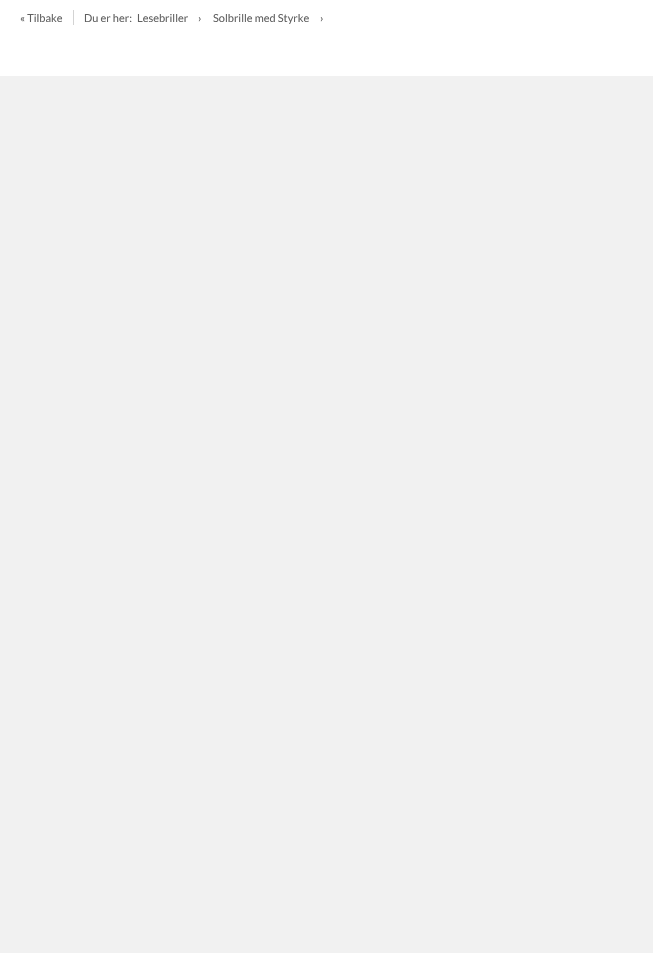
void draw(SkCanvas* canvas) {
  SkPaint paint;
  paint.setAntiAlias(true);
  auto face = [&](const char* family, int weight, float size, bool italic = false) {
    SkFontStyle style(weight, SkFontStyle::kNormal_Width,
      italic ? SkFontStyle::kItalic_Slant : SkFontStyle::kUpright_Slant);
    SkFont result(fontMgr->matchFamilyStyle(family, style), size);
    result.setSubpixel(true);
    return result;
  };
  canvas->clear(0xfff1f1f1);
  paint.setColor(0xffffffff);
  canvas->drawRect(SkRect::MakeXYWH(0, 0, 653, 76), paint);
  paint.setColor(0xffd3d3d3);
  canvas->drawRect(SkRect::MakeXYWH(73, 10, 1, 15), paint);
  auto f0 = face("Lato", 400, 11);
  paint.setColor(0xff606060);
  {
    const struct { const char* s; float x, y; } items[] = {
      {"« Tilbake", 20, 22},
      {"Du er her:", 84, 22},
      {"Lesebriller", 137, 22},
      {"›", 198, 22},
      {"Solbrille med Styrke", 213, 22},
      {"›", 320, 22},
    };
    for (auto [s, x, y] : items) {
      canvas->drawString(s, x, y, f0, paint);
    }
  }
}
